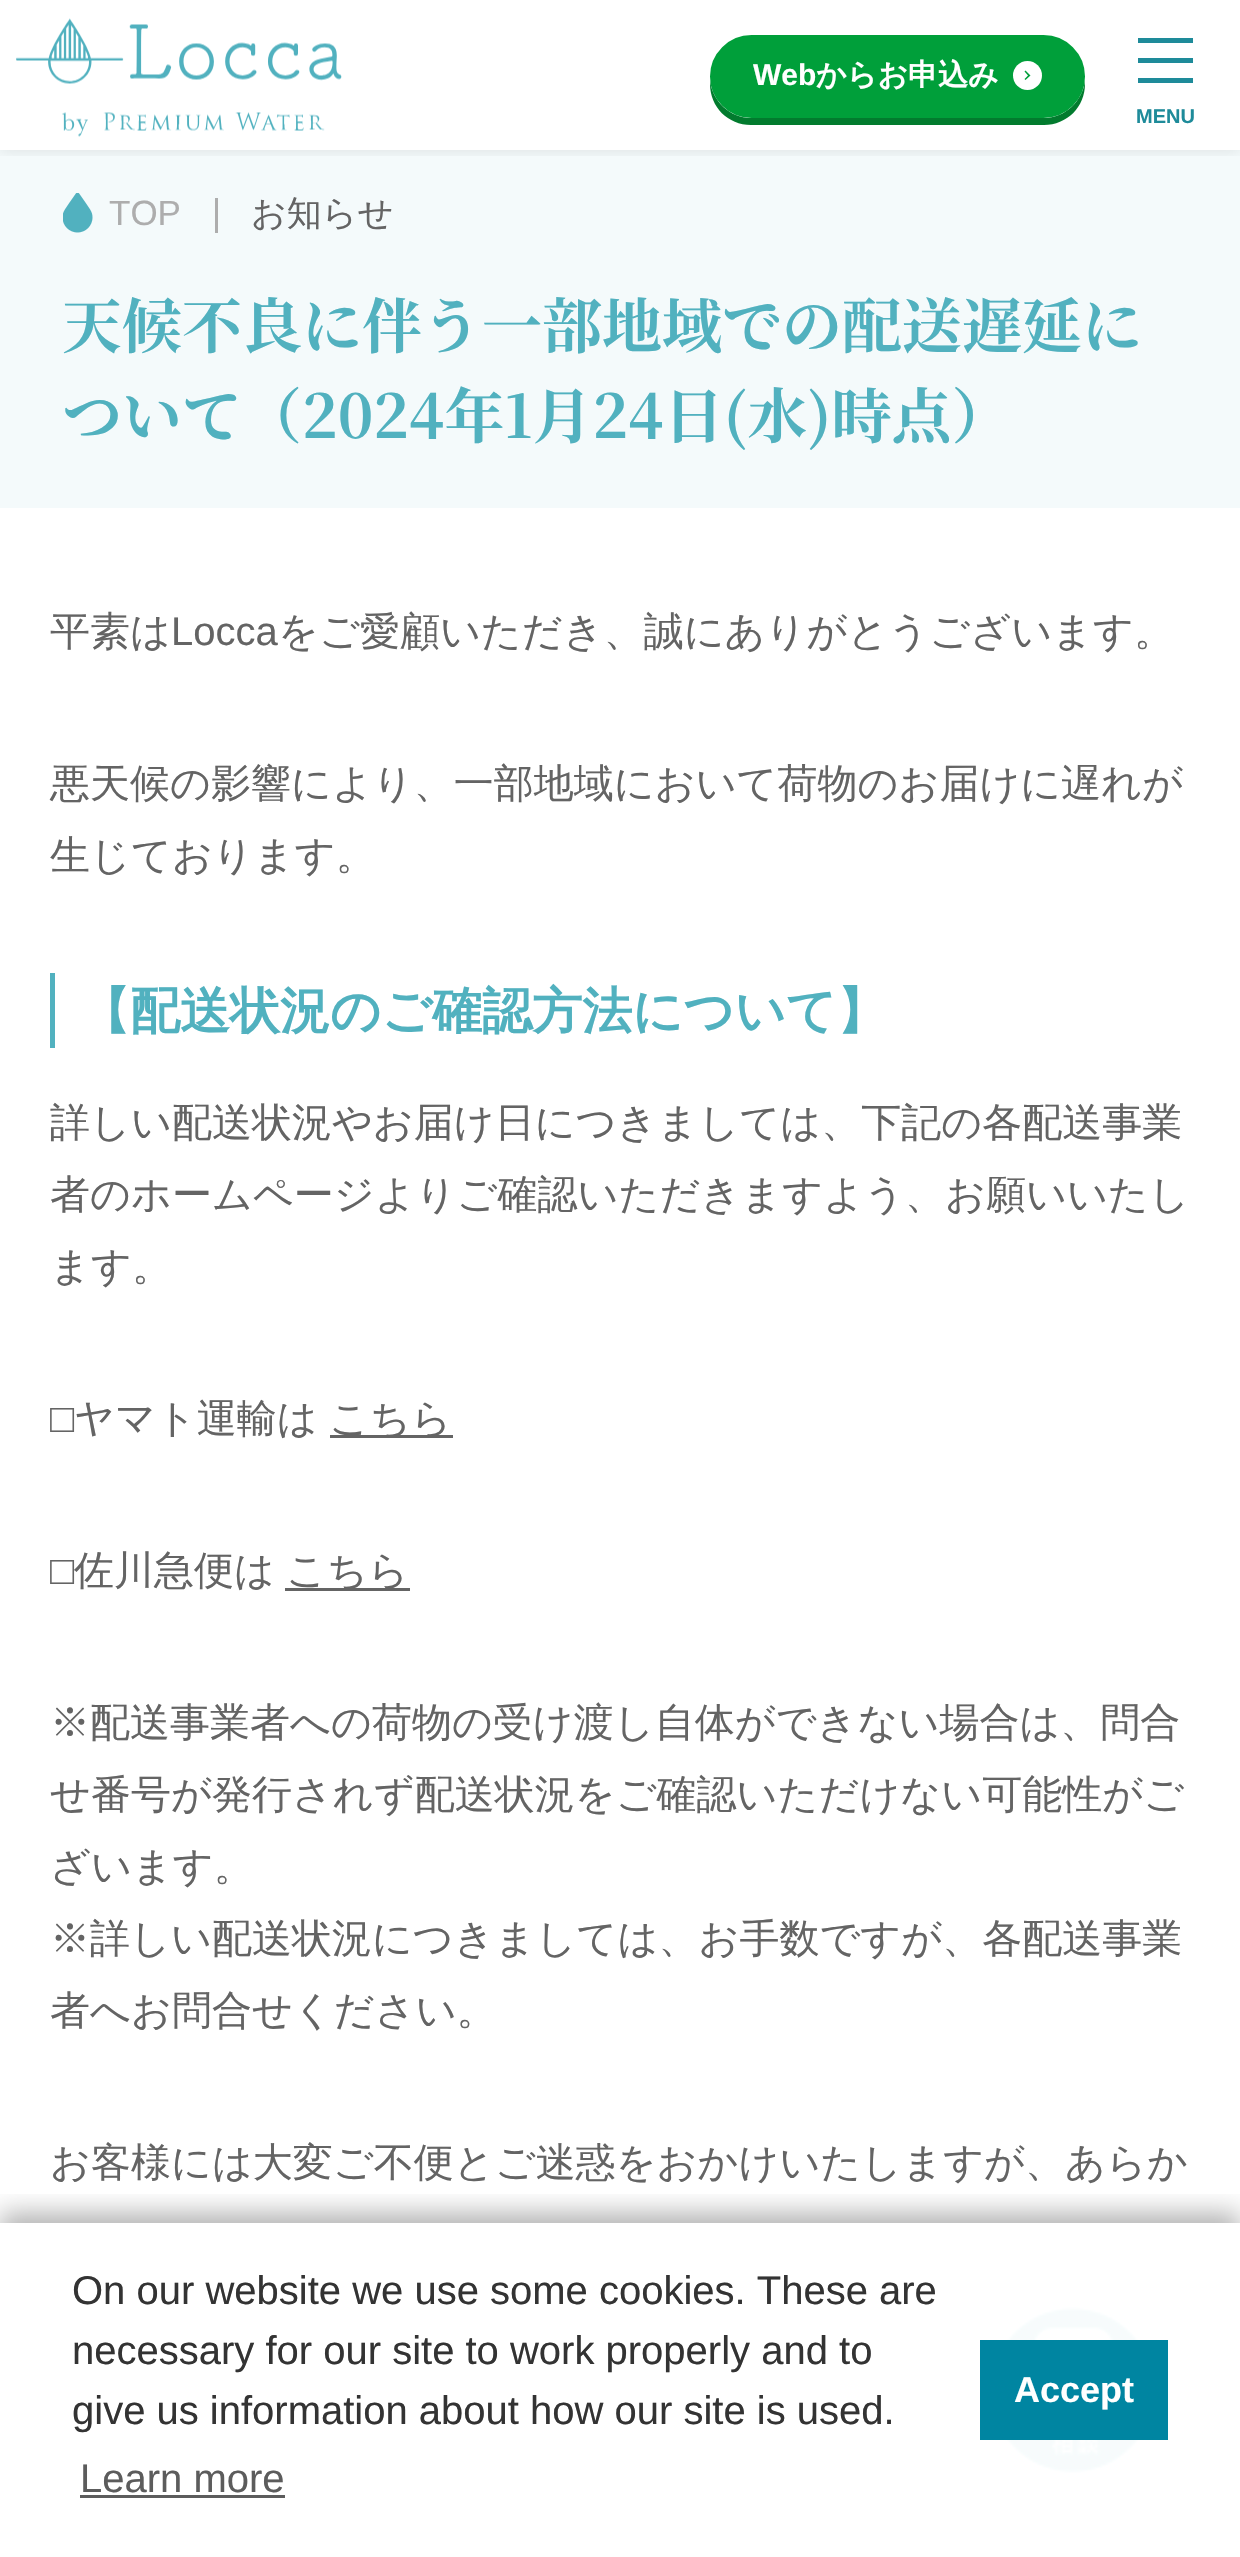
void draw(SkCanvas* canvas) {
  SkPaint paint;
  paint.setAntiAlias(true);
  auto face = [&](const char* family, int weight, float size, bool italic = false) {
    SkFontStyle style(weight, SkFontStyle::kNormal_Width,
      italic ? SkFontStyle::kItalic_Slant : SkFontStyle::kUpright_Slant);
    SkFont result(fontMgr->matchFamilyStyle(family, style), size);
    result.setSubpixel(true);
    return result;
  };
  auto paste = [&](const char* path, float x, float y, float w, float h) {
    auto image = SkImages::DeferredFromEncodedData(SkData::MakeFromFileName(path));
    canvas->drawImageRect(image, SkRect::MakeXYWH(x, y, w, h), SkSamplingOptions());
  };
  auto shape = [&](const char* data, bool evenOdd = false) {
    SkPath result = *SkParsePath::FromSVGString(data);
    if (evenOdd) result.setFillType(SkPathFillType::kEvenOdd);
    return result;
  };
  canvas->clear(0xffffffff);
  paint.setColor(0xfff4fafb);
  canvas->drawRect(SkRect::MakeXYWH(0, 150, 1240, 358), paint);
  canvas->save();
  canvas->clipRect(SkRect::MakeXYWH(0, 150, 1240, 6));
  paint.setColor(0x1a000000);
  paint.setMaskFilter(SkMaskFilter::MakeBlur(kNormal_SkBlurStyle, 7.5f));
  canvas->drawRect(SkRect::MakeXYWH(0, 0, 1240, 150), paint);
  paint.setMaskFilter(nullptr);
  canvas->restore();
  paste("img/1.png", 16, 18, 326, 119);
  paint.setColor(0xff027b2e);
  canvas->drawPath(shape("M710 80V84C710 107 728 125 751 125H1044C1067 125 1085 107 1085 84V80C1083 101 1065 118 1044 118H751C730 118 712 101 710 80Z"), paint);
  paint.setColor(0xff009f3a);
  canvas->drawRoundRect(SkRect::MakeXYWH(711.5f, 36.5f, 372, 80), 40, 40, paint);
  paint.setStroke(true);
  paint.setStrokeWidth(3);
  canvas->drawRoundRect(SkRect::MakeXYWH(711.5f, 36.5f, 372, 80), 40, 40, paint);
  paint.setStroke(false);
  paint.setColor(0xffffffff);
  canvas->drawCircle(1027.5f, 75.5f, 14.5f, paint);
  paint.setColor(0xff009f3a);
  canvas->drawPath(shape("M1028 75.5L1024.5 71.5L1025.5 70.5L1030.5 75.5L1025.5 80L1024.5 79Z"), paint);
  {
    const struct { float x, y, w, h; SkColor color; } items[] = {
      {1138, 38, 55, 5, 0xff1e8b9a},
      {1138, 58, 55, 5, 0xff1e8b9a},
      {1138, 78, 55, 5, 0xff1e8b9a},
    };
    for (auto [x, y, w, h, color] : items) {
      paint.setColor(color);
      canvas->drawRect(SkRect::MakeXYWH(x, y, w, h), paint);
    }
  }
  paste("img/2.png", 63, 193, 30, 40);
  {
    const struct { float x, y, w, h; SkColor color; } items[] = {
      {215, 198, 3, 35, 0xffadadad},
      {50, 973, 5, 75, 0xff51b1bf},
      {330, 1435, 123, 3, 0xff646464},
      {285, 1588, 125, 3, 0xff646464},
    };
    for (auto [x, y, w, h, color] : items) {
      paint.setColor(color);
      canvas->drawRect(SkRect::MakeXYWH(x, y, w, h), paint);
    }
  }
  paste("img/3.png", 1000, 2306, 145, 168);
  paint.setColor(0xfff0f8f9);
  canvas->drawRect(SkRect::MakeXYWH(0, 2553, 1240, 4), paint);
  canvas->save();
  canvas->clipRect(SkRect::MakeXYWH(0, 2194, 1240, 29));
  paint.setColor(0x4d000000);
  paint.setMaskFilter(SkMaskFilter::MakeBlur(kNormal_SkBlurStyle, 12.5f));
  canvas->drawRect(SkRect::MakeXYWH(0, 2213, 1240, 335), paint);
  paint.setMaskFilter(nullptr);
  canvas->restore();
  {
    const struct { float x, y, w, h; SkColor color; } items[] = {
      {0, 2306, 1240, 251, 0xf2ffffff},
      {80, 2495, 205, 3, 0xff5c5c5c},
      {980, 2340, 188, 100, 0xff0085a1},
    };
    for (auto [x, y, w, h, color] : items) {
      paint.setColor(color);
      canvas->drawRect(SkRect::MakeXYWH(x, y, w, h), paint);
    }
  }
  auto f0 = face("Liberation Sans", 700, 30);
  paint.setColor(0xffffffff);
  canvas->drawString("Web", 753, 85, f0, paint);
  auto f1 = face("WenQuanYi Zen Hei", 700, 30);
  canvas->drawString("からお申込み", 816, 85, f1, paint);
  auto f2 = face("Liberation Sans", 700, 20);
  paint.setColor(0xff1e8b9a);
  canvas->drawString("MENU", 1136, 123, f2, paint);
  auto f3 = face("Liberation Sans", 400, 35);
  paint.setColor(0xffadadad);
  canvas->drawString("TOP", 109, 225, f3, paint);
  auto f4 = face("WenQuanYi Zen Hei", 500, 35);
  paint.setColor(0xff646464);
  canvas->drawString("お知らせ", 251, 225, f4, paint);
  auto f5 = face("Noto Serif JP", 700, 60);
  paint.setColor(0xff51b1bf);
  canvas->drawString("天候不良に伴う一部地域での配送遅延に", 62, 348, f5, paint);
  canvas->drawString("ついて（2024年1月24日(水)時点）", 62, 438, f5, paint);
  auto f6 = face("WenQuanYi Zen Hei", 500, 40);
  paint.setColor(0xff646464);
  canvas->drawString("平素は", 50, 645, f6, paint);
  auto f7 = face("Liberation Sans", 400, 40);
  canvas->drawString("Locca", 171, 645, f7, paint);
  {
    const struct { const char* s; float x, y; } items[] = {
      {"をご愛顧いただき、誠にありがとうございます。", 278, 645},
      {"悪天候の影響により、一部地域において荷物のお届けに遅れが", 50, 797},
      {"生じております。", 50, 869},
    };
    for (auto [s, x, y] : items) {
      canvas->drawString(s, x, y, f6, paint);
    }
  }
  auto f8 = face("WenQuanYi Zen Hei", 700, 50);
  paint.setColor(0xff51b1bf);
  canvas->drawString("【配送状況のご確認方法について】", 80, 1028, f8, paint);
  paint.setColor(0xff646464);
  {
    const struct { const char* s; float x, y; } items[] = {
      {"詳しい配送状況やお届け日につきましては、下記の各配送事業", 50, 1136},
      {"者のホームページよりご確認いただきますよう、お願いいたし", 50, 1208},
      {"ます。", 50, 1280},
    };
    for (auto [s, x, y] : items) {
      canvas->drawString(s, x, y, f6, paint);
    }
  }
  canvas->drawString("□", 50, 1432, f7, paint);
  canvas->drawString("ヤマト運輸は", 74, 1432, f6, paint);
  canvas->drawString("こちら", 329, 1432, f6, paint);
  canvas->drawString("□", 50, 1584, f7, paint);
  {
    const struct { const char* s; float x, y; } items[] = {
      {"佐川急便は", 74, 1584},
      {"こちら", 286, 1584},
      {"※配送事業者への荷物の受け渡し自体ができない場合は、問合", 50, 1736},
      {"せ番号が発行されず配送状況をご確認いただけない可能性がご", 50, 1808},
      {"ざいます。", 50, 1880},
      {"※詳しい配送状況につきましては、お手数ですが、各配送事業", 50, 1952},
      {"者へお問合せください。", 50, 2024},
      {"お客様には大変ご不便とご迷惑をおかけいたしますが、あらか", 50, 2176},
    };
    for (auto [s, x, y] : items) {
      canvas->drawString(s, x, y, f6, paint);
    }
  }
  paint.setColor(0xff333333);
  {
    const struct { const char* s; float x, y; } items[] = {
      {"On our website we use some cookies. These are", 72, 2304},
      {"necessary for our site to work properly and to", 72, 2364},
      {"give us information about how our site is used.", 72, 2424},
    };
    for (auto [s, x, y] : items) {
      canvas->drawString(s, x, y, f7, paint);
    }
  }
  paint.setColor(0xff5c5c5c);
  canvas->drawString("Learn more", 80, 2492, f7, paint);
  auto f9 = face("Liberation Sans", 700, 36);
  paint.setColor(0xffffffff);
  canvas->drawString("Accept", 1014, 2402, f9, paint);
}
